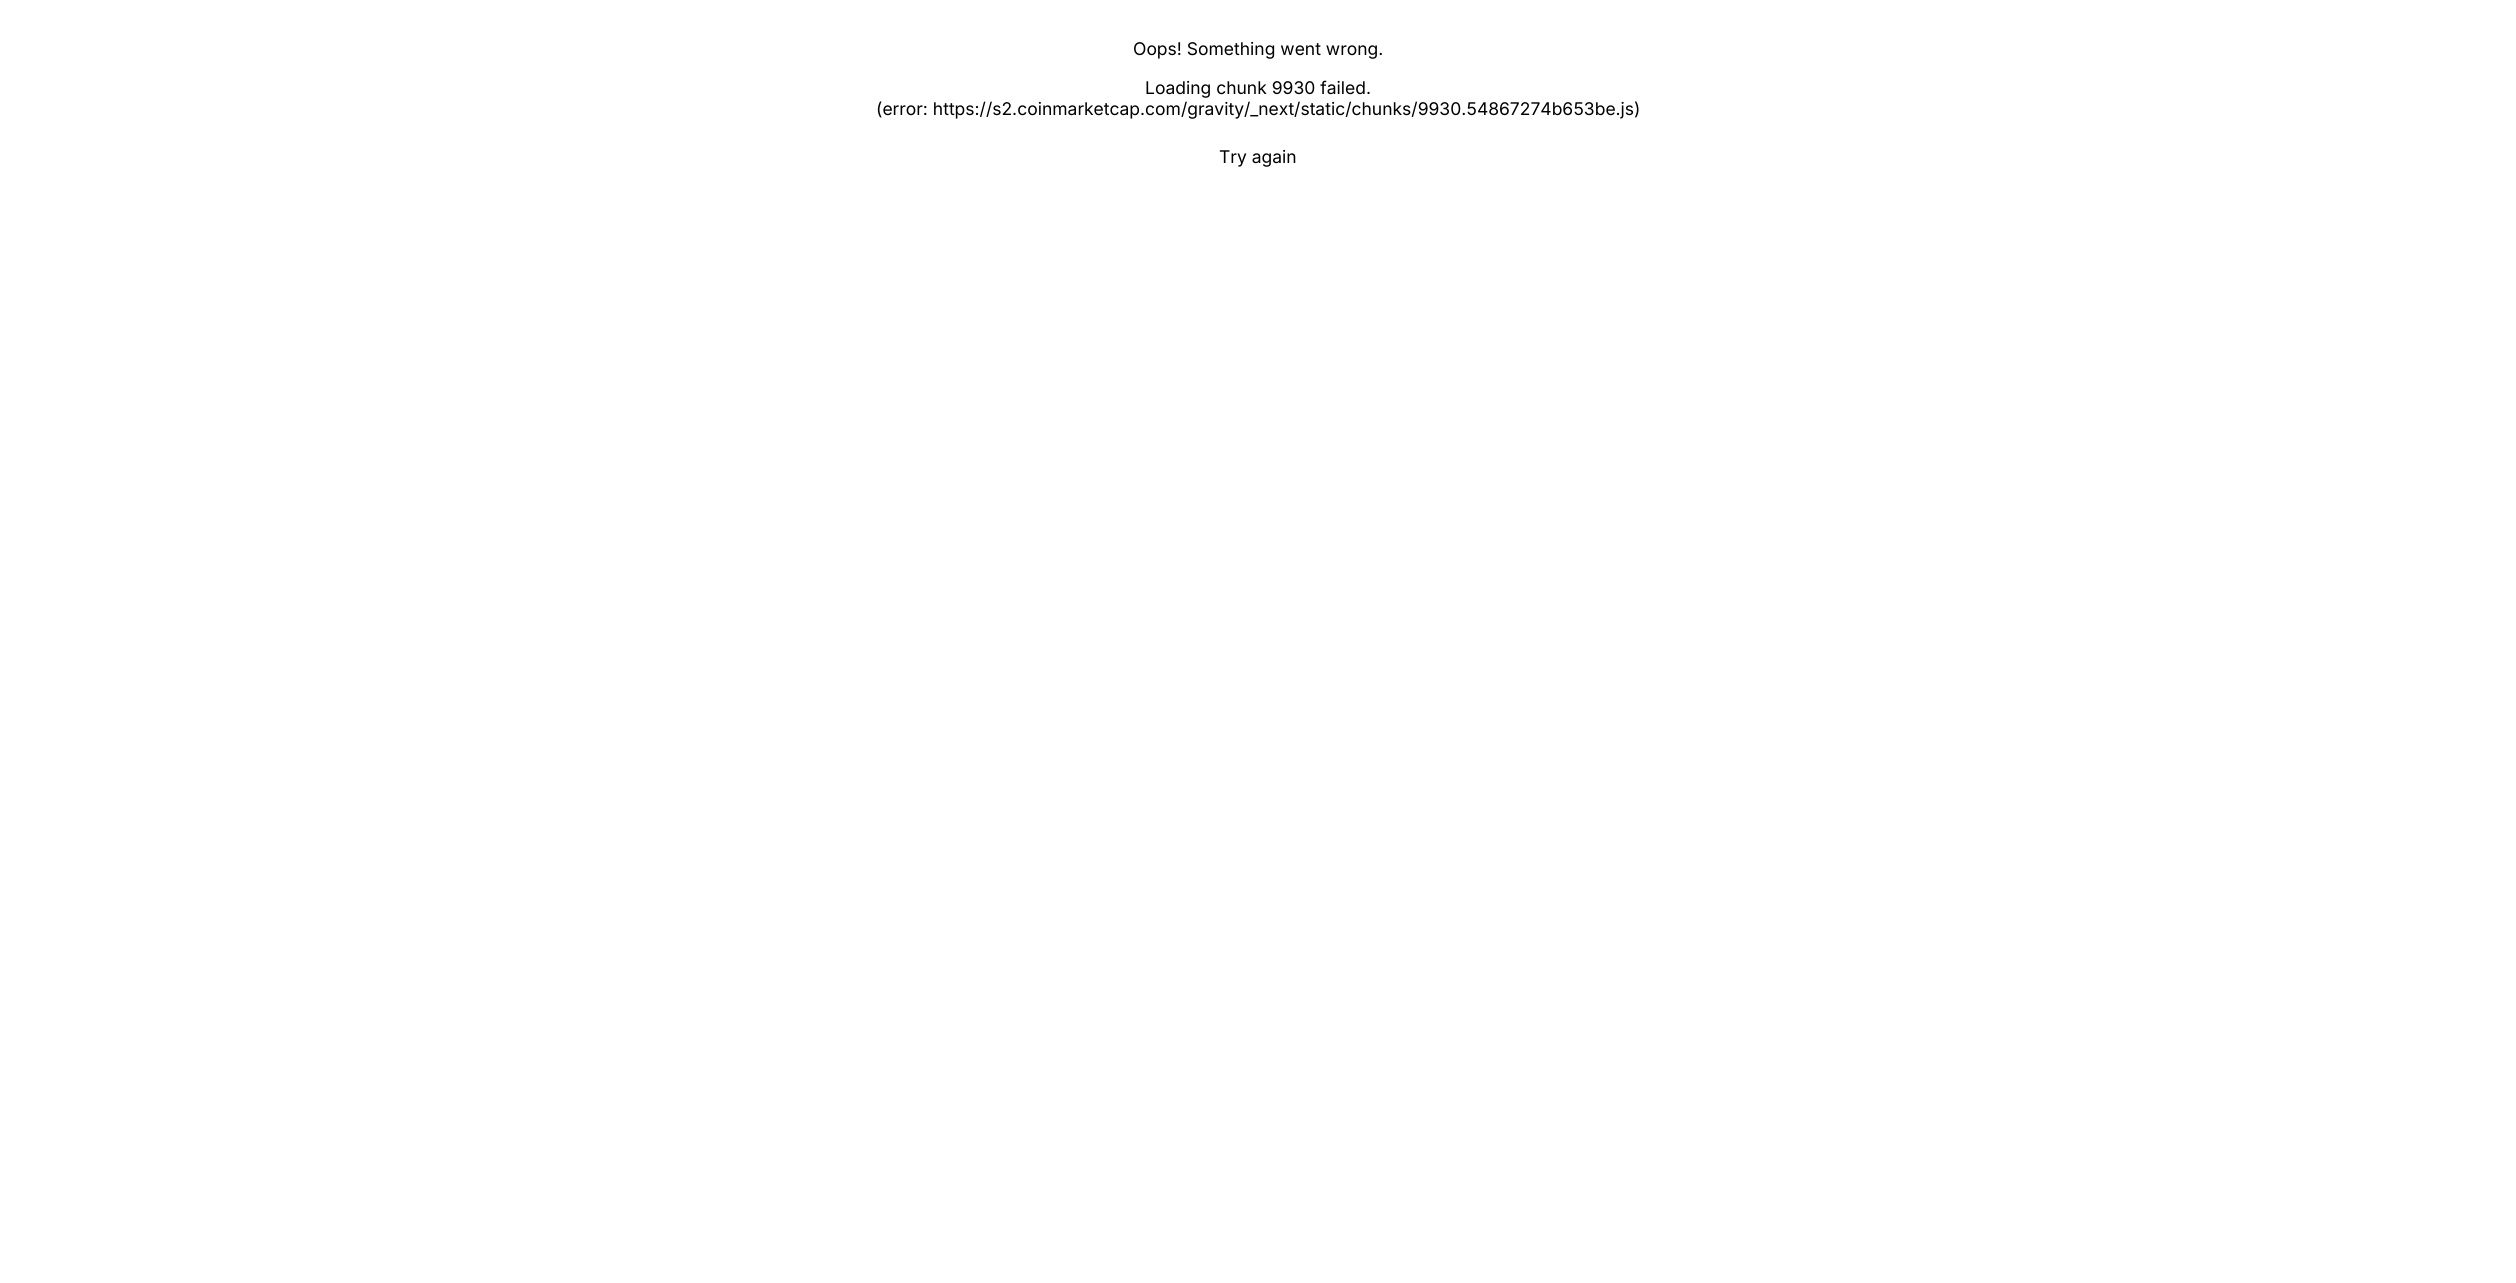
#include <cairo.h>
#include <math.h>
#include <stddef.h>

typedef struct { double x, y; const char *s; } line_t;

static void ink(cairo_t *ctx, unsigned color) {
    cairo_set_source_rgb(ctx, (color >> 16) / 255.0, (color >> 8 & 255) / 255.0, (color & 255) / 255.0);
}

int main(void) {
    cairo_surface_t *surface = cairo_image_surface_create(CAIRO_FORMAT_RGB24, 2516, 1283);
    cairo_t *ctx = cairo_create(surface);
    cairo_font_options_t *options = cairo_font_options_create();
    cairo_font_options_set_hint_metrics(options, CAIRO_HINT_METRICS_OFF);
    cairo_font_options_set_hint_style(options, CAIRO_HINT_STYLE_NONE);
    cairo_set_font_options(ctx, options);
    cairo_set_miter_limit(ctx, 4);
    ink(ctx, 0xFFFFFF);
    cairo_paint(ctx);
    cairo_select_font_face(ctx, "Inter", CAIRO_FONT_SLANT_NORMAL, CAIRO_FONT_WEIGHT_NORMAL);
    cairo_set_font_size(ctx, 17.5);
    ink(ctx, 0x000000);
    {
        static const line_t items[] = {
            {1133, 55, "Oops! Something went wrong."},
            {1145, 94, "Loading chunk 9930 failed."},
            {876, 115, "(error: https://s2.coinmarketcap.com/gravity/_next/static/chunks/9930.54867274b653be.js)"},
            {1219, 163, "Try again"},
        };
        for (size_t i = 0; i < sizeof items / sizeof *items; i++) {
            cairo_move_to(ctx, items[i].x, items[i].y);
            cairo_show_text(ctx, items[i].s);
        }
    }
    cairo_surface_write_to_png(surface, "image.png");
    cairo_font_options_destroy(options);
    cairo_destroy(ctx);
    cairo_surface_destroy(surface);
    return 0;
}
